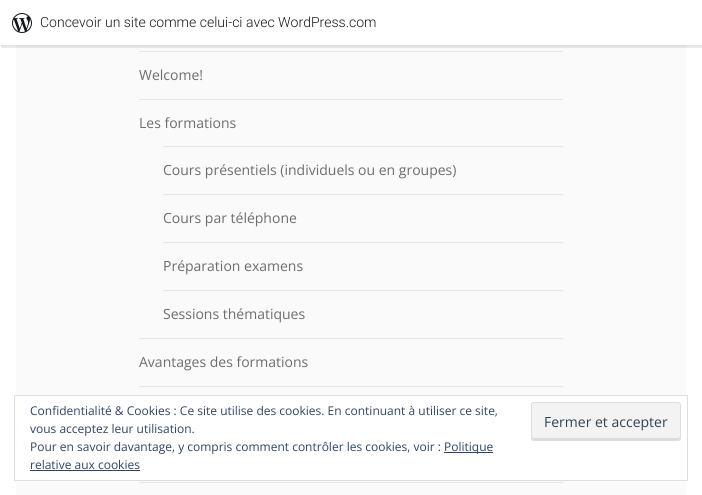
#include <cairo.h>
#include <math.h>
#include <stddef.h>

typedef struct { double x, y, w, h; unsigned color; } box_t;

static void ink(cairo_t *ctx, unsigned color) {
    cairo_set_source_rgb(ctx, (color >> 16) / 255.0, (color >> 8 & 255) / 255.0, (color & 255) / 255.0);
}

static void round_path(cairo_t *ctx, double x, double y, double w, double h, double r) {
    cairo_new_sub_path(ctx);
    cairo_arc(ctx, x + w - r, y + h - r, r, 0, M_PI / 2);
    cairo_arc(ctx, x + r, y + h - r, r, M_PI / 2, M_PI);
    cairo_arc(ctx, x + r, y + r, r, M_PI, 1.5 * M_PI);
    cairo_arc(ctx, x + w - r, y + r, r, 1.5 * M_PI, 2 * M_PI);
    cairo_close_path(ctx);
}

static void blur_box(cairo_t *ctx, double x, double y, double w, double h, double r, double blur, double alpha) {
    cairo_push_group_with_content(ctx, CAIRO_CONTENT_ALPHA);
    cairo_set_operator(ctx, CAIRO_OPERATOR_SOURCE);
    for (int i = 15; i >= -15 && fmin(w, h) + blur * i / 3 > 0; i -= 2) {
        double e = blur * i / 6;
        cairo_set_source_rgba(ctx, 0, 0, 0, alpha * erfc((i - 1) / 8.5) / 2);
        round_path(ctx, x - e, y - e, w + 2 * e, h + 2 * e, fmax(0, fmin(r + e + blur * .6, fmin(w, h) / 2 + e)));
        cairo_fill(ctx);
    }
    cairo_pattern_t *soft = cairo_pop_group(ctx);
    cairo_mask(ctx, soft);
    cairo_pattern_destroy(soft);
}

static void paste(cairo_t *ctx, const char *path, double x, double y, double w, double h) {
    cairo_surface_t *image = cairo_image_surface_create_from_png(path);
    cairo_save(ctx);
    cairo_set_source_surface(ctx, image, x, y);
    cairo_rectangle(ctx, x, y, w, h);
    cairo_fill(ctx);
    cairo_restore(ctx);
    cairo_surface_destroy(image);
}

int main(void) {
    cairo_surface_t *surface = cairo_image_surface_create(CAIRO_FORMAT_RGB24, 702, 495);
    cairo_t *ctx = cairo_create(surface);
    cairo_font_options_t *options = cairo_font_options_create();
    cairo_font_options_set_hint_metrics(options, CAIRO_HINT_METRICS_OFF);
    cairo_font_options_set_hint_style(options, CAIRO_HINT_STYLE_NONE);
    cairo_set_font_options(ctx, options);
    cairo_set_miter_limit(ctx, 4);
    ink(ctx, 0xFFFFFF);
    cairo_paint(ctx);
    ink(ctx, 0xFAFAFA);
    cairo_rectangle(ctx, 16, 45, 670, 450);
    cairo_fill(ctx);
    ink(ctx, 0x000000);
    blur_box(ctx, 0, 1, 702, 45, 0, 1, 0.05);
    cairo_set_source_rgba(ctx, 0, 0, 0, 0.08);
    cairo_new_path(ctx);
    cairo_move_to(ctx, 1, 45);
    cairo_line_to(ctx, 1, 48);
    cairo_line_to(ctx, 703, 48);
    cairo_line_to(ctx, 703, 3);
    cairo_line_to(ctx, 702, 3);
    cairo_line_to(ctx, 702, 45);
    cairo_close_path(ctx);
    cairo_fill(ctx);
    ink(ctx, 0xFFFFFF);
    cairo_rectangle(ctx, 0, 0, 702, 45);
    cairo_fill(ctx);
    paste(ctx, "media/1.png", 12, 13, 20, 20);
    cairo_select_font_face(ctx, "Roboto Light", CAIRO_FONT_SLANT_NORMAL, CAIRO_FONT_WEIGHT_NORMAL);
    cairo_set_font_size(ctx, 14);
    ink(ctx, 0x171717);
    cairo_move_to(ctx, 40, 27);
    cairo_show_text(ctx, "Concevoir un site comme celui-ci avec WordPress.com");
    ink(ctx, 0xE5E5E5);
    cairo_rectangle(ctx, 139, 51, 424, 1);
    cairo_fill(ctx);
    cairo_select_font_face(ctx, "Open Sans", CAIRO_FONT_SLANT_NORMAL, CAIRO_FONT_WEIGHT_NORMAL);
    ink(ctx, 0x6D6D6D);
    cairo_move_to(ctx, 139, 80);
    cairo_show_text(ctx, "Welcome!");
    ink(ctx, 0xE5E5E5);
    cairo_rectangle(ctx, 139, 99, 424, 1);
    cairo_fill(ctx);
    ink(ctx, 0x6D6D6D);
    cairo_move_to(ctx, 139, 128);
    cairo_show_text(ctx, "Les formations");
    ink(ctx, 0xE5E5E5);
    cairo_rectangle(ctx, 163, 146, 400, 1);
    cairo_fill(ctx);
    ink(ctx, 0x6D6D6D);
    cairo_move_to(ctx, 163, 175);
    cairo_show_text(ctx, "Cours présentiels (individuels ou en groupes)");
    ink(ctx, 0xE5E5E5);
    cairo_rectangle(ctx, 163, 194, 400, 1);
    cairo_fill(ctx);
    ink(ctx, 0x6D6D6D);
    cairo_move_to(ctx, 163, 223);
    cairo_show_text(ctx, "Cours par téléphone");
    ink(ctx, 0xE5E5E5);
    cairo_rectangle(ctx, 163, 242, 400, 1);
    cairo_fill(ctx);
    ink(ctx, 0x6D6D6D);
    cairo_move_to(ctx, 163, 271);
    cairo_show_text(ctx, "Préparation examens");
    ink(ctx, 0xE5E5E5);
    cairo_rectangle(ctx, 163, 290, 400, 1);
    cairo_fill(ctx);
    ink(ctx, 0x6D6D6D);
    cairo_move_to(ctx, 163, 319);
    cairo_show_text(ctx, "Sessions thématiques");
    ink(ctx, 0xE5E5E5);
    cairo_rectangle(ctx, 139, 338, 424, 1);
    cairo_fill(ctx);
    ink(ctx, 0x6D6D6D);
    cairo_move_to(ctx, 139, 367);
    cairo_show_text(ctx, "Avantages des formations");
    {
        static const box_t items[] = {
            {139, 386, 424, 1, 0xE5E5E5},
            {139, 482, 424, 1, 0xE5E5E5},
            {16, 396, 670, 84, 0xFFFFFF},
        };
        for (size_t i = 0; i < sizeof items / sizeof *items; i++) {
            ink(ctx, items[i].color);
            cairo_rectangle(ctx, items[i].x, items[i].y, items[i].w, items[i].h);
            cairo_fill(ctx);
        }
    }
    cairo_rectangle(ctx, 14.5, 395.5, 673, 85);
    ink(ctx, 0xDEDEDE);
    cairo_set_line_width(ctx, 1);
    cairo_stroke(ctx);
    cairo_set_font_size(ctx, 12);
    ink(ctx, 0x2E4467);
    cairo_move_to(ctx, 30, 415);
    cairo_show_text(ctx, "Confidentialité & Cookies : Ce site utilise des cookies. En continuant à utiliser ce site,");
    cairo_move_to(ctx, 30, 433);
    cairo_show_text(ctx, "vous acceptez leur utilisation.");
    ink(ctx, 0xF3F3F3);
    round_path(ctx, 531, 402, 150, 39, 3);
    cairo_fill(ctx);
    ink(ctx, 0xDBDBDB);
    cairo_new_path(ctx);
    cairo_move_to(ctx, 532, 436);
    cairo_curve_to(ctx, 532, 437, 532, 440, 534, 440);
    cairo_line_to(ctx, 678, 440);
    cairo_curve_to(ctx, 680, 440, 680, 438, 680, 436);
    cairo_curve_to(ctx, 680, 437, 679, 438, 678, 438);
    cairo_line_to(ctx, 534, 438);
    cairo_curve_to(ctx, 533, 438, 532, 437, 532, 436);
    cairo_close_path(ctx);
    cairo_fill(ctx);
    round_path(ctx, 531.5, 402.5, 149, 38, 2.5);
    ink(ctx, 0xDEDEDE);
    cairo_stroke(ctx);
    cairo_set_font_size(ctx, 14);
    ink(ctx, 0x2E4453);
    cairo_move_to(ctx, 544, 427);
    cairo_show_text(ctx, "Fermer et accepter");
    cairo_set_font_size(ctx, 12);
    ink(ctx, 0x2E4467);
    cairo_move_to(ctx, 30, 451);
    cairo_show_text(ctx, "Pour en savoir davantage, y compris comment contrôler les cookies, voir :");
    cairo_rectangle(ctx, 444, 452, 49, 1);
    cairo_fill(ctx);
    cairo_move_to(ctx, 444, 451);
    cairo_show_text(ctx, "Politique");
    cairo_move_to(ctx, 30, 469);
    cairo_show_text(ctx, "relative aux cookies");
    cairo_rectangle(ctx, 30, 470, 110, 1);
    cairo_fill(ctx);
    cairo_surface_write_to_png(surface, "image.png");
    cairo_font_options_destroy(options);
    cairo_destroy(ctx);
    cairo_surface_destroy(surface);
    return 0;
}
